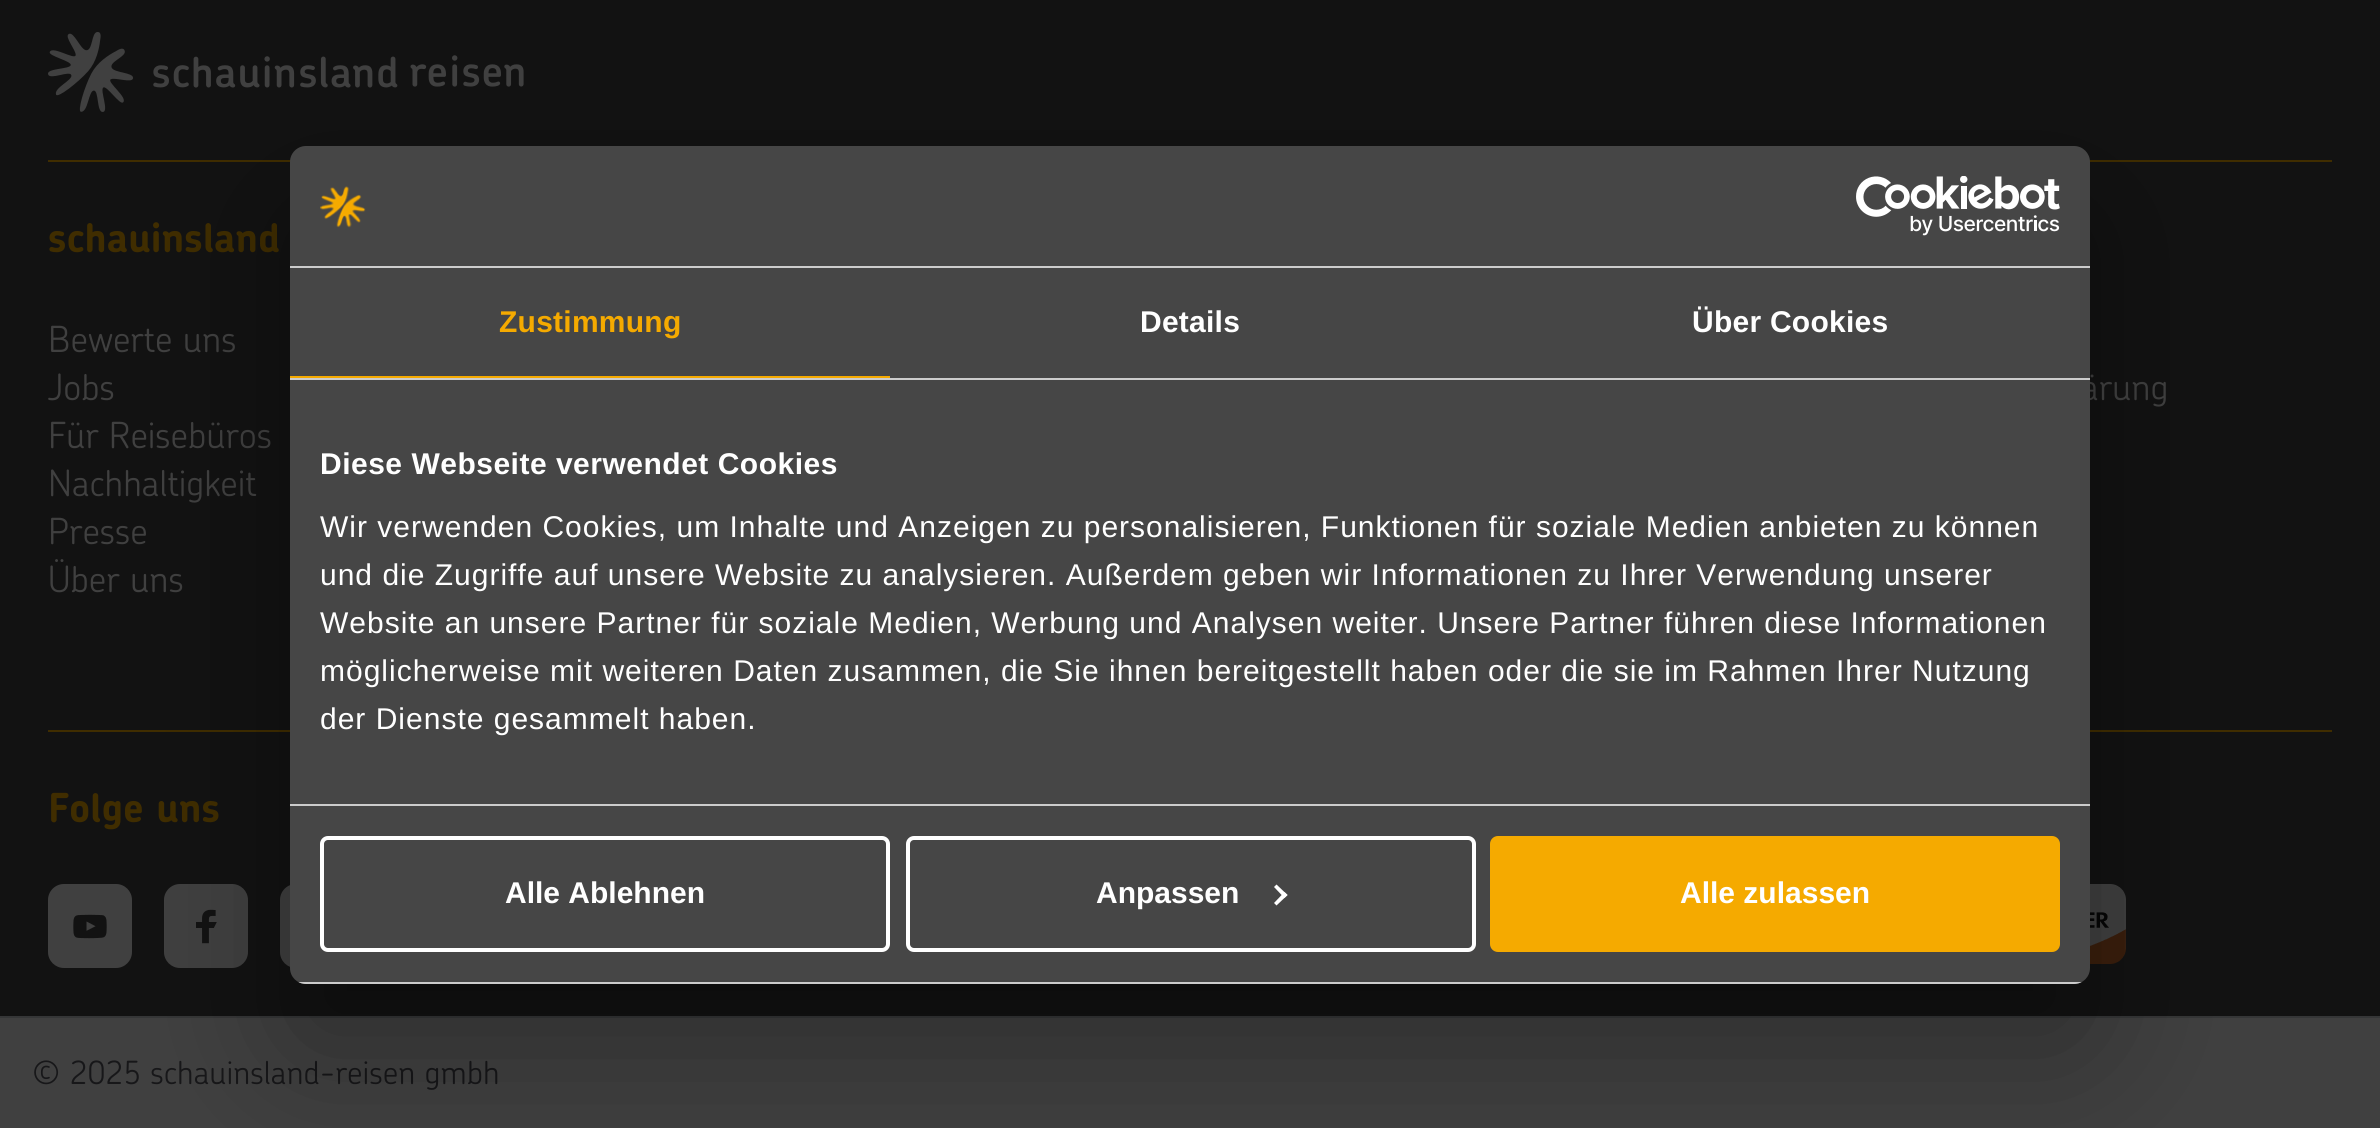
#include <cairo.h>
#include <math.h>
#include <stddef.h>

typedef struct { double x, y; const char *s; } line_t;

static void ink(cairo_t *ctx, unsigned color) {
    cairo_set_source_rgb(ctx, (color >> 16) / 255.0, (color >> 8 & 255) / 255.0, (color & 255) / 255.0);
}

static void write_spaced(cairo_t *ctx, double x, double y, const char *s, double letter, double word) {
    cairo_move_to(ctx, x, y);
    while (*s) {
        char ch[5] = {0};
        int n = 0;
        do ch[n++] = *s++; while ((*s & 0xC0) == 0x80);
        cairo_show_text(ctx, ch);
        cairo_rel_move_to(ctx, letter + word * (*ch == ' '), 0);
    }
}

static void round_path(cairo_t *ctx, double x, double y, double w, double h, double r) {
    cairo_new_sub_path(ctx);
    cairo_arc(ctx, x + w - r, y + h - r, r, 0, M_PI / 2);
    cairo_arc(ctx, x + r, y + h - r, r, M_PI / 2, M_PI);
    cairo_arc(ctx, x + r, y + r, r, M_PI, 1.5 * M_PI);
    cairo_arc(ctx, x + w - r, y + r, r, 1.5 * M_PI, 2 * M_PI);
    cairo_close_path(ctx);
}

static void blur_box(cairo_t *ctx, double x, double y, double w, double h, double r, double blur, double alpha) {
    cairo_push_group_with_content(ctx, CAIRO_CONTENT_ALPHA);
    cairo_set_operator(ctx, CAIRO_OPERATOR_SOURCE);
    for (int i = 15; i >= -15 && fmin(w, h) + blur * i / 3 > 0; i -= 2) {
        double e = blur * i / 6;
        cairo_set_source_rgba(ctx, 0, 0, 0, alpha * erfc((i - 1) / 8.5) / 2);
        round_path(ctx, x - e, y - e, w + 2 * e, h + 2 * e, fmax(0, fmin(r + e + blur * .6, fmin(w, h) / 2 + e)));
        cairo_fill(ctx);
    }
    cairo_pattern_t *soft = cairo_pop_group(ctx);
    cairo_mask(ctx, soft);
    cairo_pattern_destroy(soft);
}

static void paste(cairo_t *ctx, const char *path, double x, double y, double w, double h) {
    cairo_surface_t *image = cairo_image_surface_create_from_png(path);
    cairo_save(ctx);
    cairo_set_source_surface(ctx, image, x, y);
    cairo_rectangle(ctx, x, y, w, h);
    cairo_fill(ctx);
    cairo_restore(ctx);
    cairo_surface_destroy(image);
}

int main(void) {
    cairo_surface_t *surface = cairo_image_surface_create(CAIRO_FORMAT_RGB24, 2380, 1128);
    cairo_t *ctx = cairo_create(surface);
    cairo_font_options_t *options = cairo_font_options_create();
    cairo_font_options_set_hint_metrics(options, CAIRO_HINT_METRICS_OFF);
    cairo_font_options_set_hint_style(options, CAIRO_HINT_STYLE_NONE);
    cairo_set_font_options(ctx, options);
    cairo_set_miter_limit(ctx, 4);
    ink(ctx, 0x121212);
    cairo_paint(ctx);
    ink(ctx, 0x402D00);
    cairo_rectangle(ctx, 48, 160, 2284, 2);
    cairo_fill(ctx);
    paste(ctx, "media/1.png", 48, 32, 476, 80);
    cairo_select_font_face(ctx, "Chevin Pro", CAIRO_FONT_SLANT_NORMAL, CAIRO_FONT_WEIGHT_BOLD);
    cairo_set_font_size(ctx, 40);
    cairo_move_to(ctx, 48, 252);
    cairo_show_text(ctx, "schauinsland");
    cairo_select_font_face(ctx, "Chevin Pro Light", CAIRO_FONT_SLANT_NORMAL, CAIRO_FONT_WEIGHT_NORMAL);
    cairo_set_font_size(ctx, 36);
    ink(ctx, 0x404040);
    {
        static const line_t items[] = {
            {48, 352, "Bewerte uns"},
            {48, 400, "Jobs"},
            {48, 448, "Für Reisebüros"},
            {48, 496, "Nachhaltigkeit"},
            {48, 544, "Presse"},
            {48, 592, "Über uns"},
            {2081, 400, "ärung"},
        };
        for (size_t i = 0; i < sizeof items / sizeof *items; i++) {
            cairo_move_to(ctx, items[i].x, items[i].y);
            cairo_show_text(ctx, items[i].s);
        }
    }
    ink(ctx, 0x402D00);
    cairo_rectangle(ctx, 48, 730, 2284, 2);
    cairo_fill(ctx);
    cairo_select_font_face(ctx, "Chevin Pro", CAIRO_FONT_SLANT_NORMAL, CAIRO_FONT_WEIGHT_BOLD);
    cairo_set_font_size(ctx, 40);
    cairo_move_to(ctx, 48, 822);
    cairo_show_text(ctx, "Folge uns");
    ink(ctx, 0x404040);
    round_path(ctx, 48, 884, 84, 84, 16);
    cairo_fill(ctx);
    paste(ctx, "media/2.png", 73, 914, 34, 25);
    round_path(ctx, 164, 884, 84, 84, 16);
    cairo_fill(ctx);
    paste(ctx, "media/3.png", 196, 909, 21, 35);
    round_path(ctx, 280, 884, 84, 84, 16);
    cairo_fill(ctx);
    paste(ctx, "media/4.png", 2090, 884, 36, 80);
    cairo_rectangle(ctx, 0, 1018, 2380, 110);
    cairo_fill(ctx);
    ink(ctx, 0x353637);
    cairo_rectangle(ctx, 0, 1016, 2380, 2);
    cairo_fill(ctx);
    cairo_select_font_face(ctx, "Chevin Pro Light", CAIRO_FONT_SLANT_NORMAL, CAIRO_FONT_WEIGHT_NORMAL);
    cairo_set_font_size(ctx, 32);
    ink(ctx, 0x171719);
    cairo_move_to(ctx, 32, 1084);
    cairo_show_text(ctx, "© 2025 schauinsland-reisen gmbh");
    ink(ctx, 0x000000);
    blur_box(ctx, 290, 210, 1800, 838, 16, 68, 0.3);
    ink(ctx, 0x464646);
    round_path(ctx, 290, 146, 1800, 838, 16);
    cairo_fill(ctx);
    ink(ctx, 0xCCCCCC);
    cairo_rectangle(ctx, 290, 266, 1800, 2);
    cairo_fill(ctx);
    paste(ctx, "media/5.png", 320, 186, 46, 42);
    paste(ctx, "media/6.png", 1856, 176, 204, 60);
    cairo_rectangle(ctx, 290, 378, 1800, 2);
    cairo_fill(ctx);
    ink(ctx, 0xF5AA00);
    cairo_rectangle(ctx, 290, 376, 600, 2);
    cairo_fill(ctx);
    cairo_select_font_face(ctx, "Liberation Sans", CAIRO_FONT_SLANT_NORMAL, CAIRO_FONT_WEIGHT_BOLD);
    cairo_set_font_size(ctx, 30);
    write_spaced(ctx, 499, 332, "Zustimmung", 0.25, 0);
    ink(ctx, 0xFFFFFF);
    write_spaced(ctx, 1140, 332, "Details", 0.25, 0);
    write_spaced(ctx, 1692, 332, "Über Cookies", 0.25, 0);
    ink(ctx, 0xCCCCCC);
    cairo_rectangle(ctx, 290, 804, 1800, 2);
    cairo_fill(ctx);
    ink(ctx, 0xFFFFFF);
    write_spaced(ctx, 320, 474, "Diese Webseite verwendet Cookies", 0.5, 0);
    cairo_select_font_face(ctx, "Liberation Sans", CAIRO_FONT_SLANT_NORMAL, CAIRO_FONT_WEIGHT_NORMAL);
    {
        static const line_t items[] = {
            {320, 537, "Wir verwenden Cookies, um Inhalte und Anzeigen zu personalisieren, Funktionen für soziale Medien anbieten zu können"},
            {320, 585, "und die Zugriffe auf unsere Website zu analysieren. Außerdem geben wir Informationen zu Ihrer Verwendung unserer"},
            {320, 633, "Website an unsere Partner für soziale Medien, Werbung und Analysen weiter. Unsere Partner führen diese Informationen"},
            {320, 681, "möglicherweise mit weiteren Daten zusammen, die Sie ihnen bereitgestellt haben oder die sie im Rahmen Ihrer Nutzung"},
            {320, 729, "der Dienste gesammelt haben."},
        };
        for (size_t i = 0; i < sizeof items / sizeof *items; i++) {
            write_spaced(ctx, items[i].x, items[i].y, items[i].s, 1, 0);
        }
    }
    cairo_save(ctx);
    round_path(ctx, 290, 146, 1800, 838, 16);
    cairo_clip(ctx);
    ink(ctx, 0xCCCCCC);
    cairo_rectangle(ctx, 290, 982, 1800, 2);
    cairo_fill(ctx);
    cairo_restore(ctx);
    round_path(ctx, 322, 838, 566, 112, 6);
    cairo_set_line_width(ctx, 4);
    cairo_stroke(ctx);
    cairo_select_font_face(ctx, "Liberation Sans", CAIRO_FONT_SLANT_NORMAL, CAIRO_FONT_WEIGHT_BOLD);
    cairo_move_to(ctx, 505, 903);
    cairo_show_text(ctx, "Alle Ablehnen");
    round_path(ctx, 908, 838, 566, 112, 6);
    cairo_stroke(ctx);
    cairo_move_to(ctx, 1096, 903);
    cairo_show_text(ctx, "Anpassen");
    cairo_new_path(ctx);
    cairo_move_to(ctx, 1276.5, 884.5);
    cairo_line_to(ctx, 1287.5, 895);
    cairo_line_to(ctx, 1284.5, 898);
    cairo_line_to(ctx, 1274, 887);
    cairo_close_path(ctx);
    cairo_fill(ctx);
    cairo_new_path(ctx);
    cairo_move_to(ctx, 1284.5, 892);
    cairo_line_to(ctx, 1287.5, 895);
    cairo_line_to(ctx, 1276.5, 905.5);
    cairo_line_to(ctx, 1274, 903);
    cairo_close_path(ctx);
    cairo_fill(ctx);
    ink(ctx, 0xF5AA00);
    round_path(ctx, 1492, 838, 566, 112, 6);
    cairo_fill_preserve(ctx);
    cairo_stroke(ctx);
    ink(ctx, 0xFFFFFF);
    cairo_move_to(ctx, 1680, 903);
    cairo_show_text(ctx, "Alle zulassen");
    cairo_surface_write_to_png(surface, "image.png");
    cairo_font_options_destroy(options);
    cairo_destroy(ctx);
    cairo_surface_destroy(surface);
    return 0;
}
